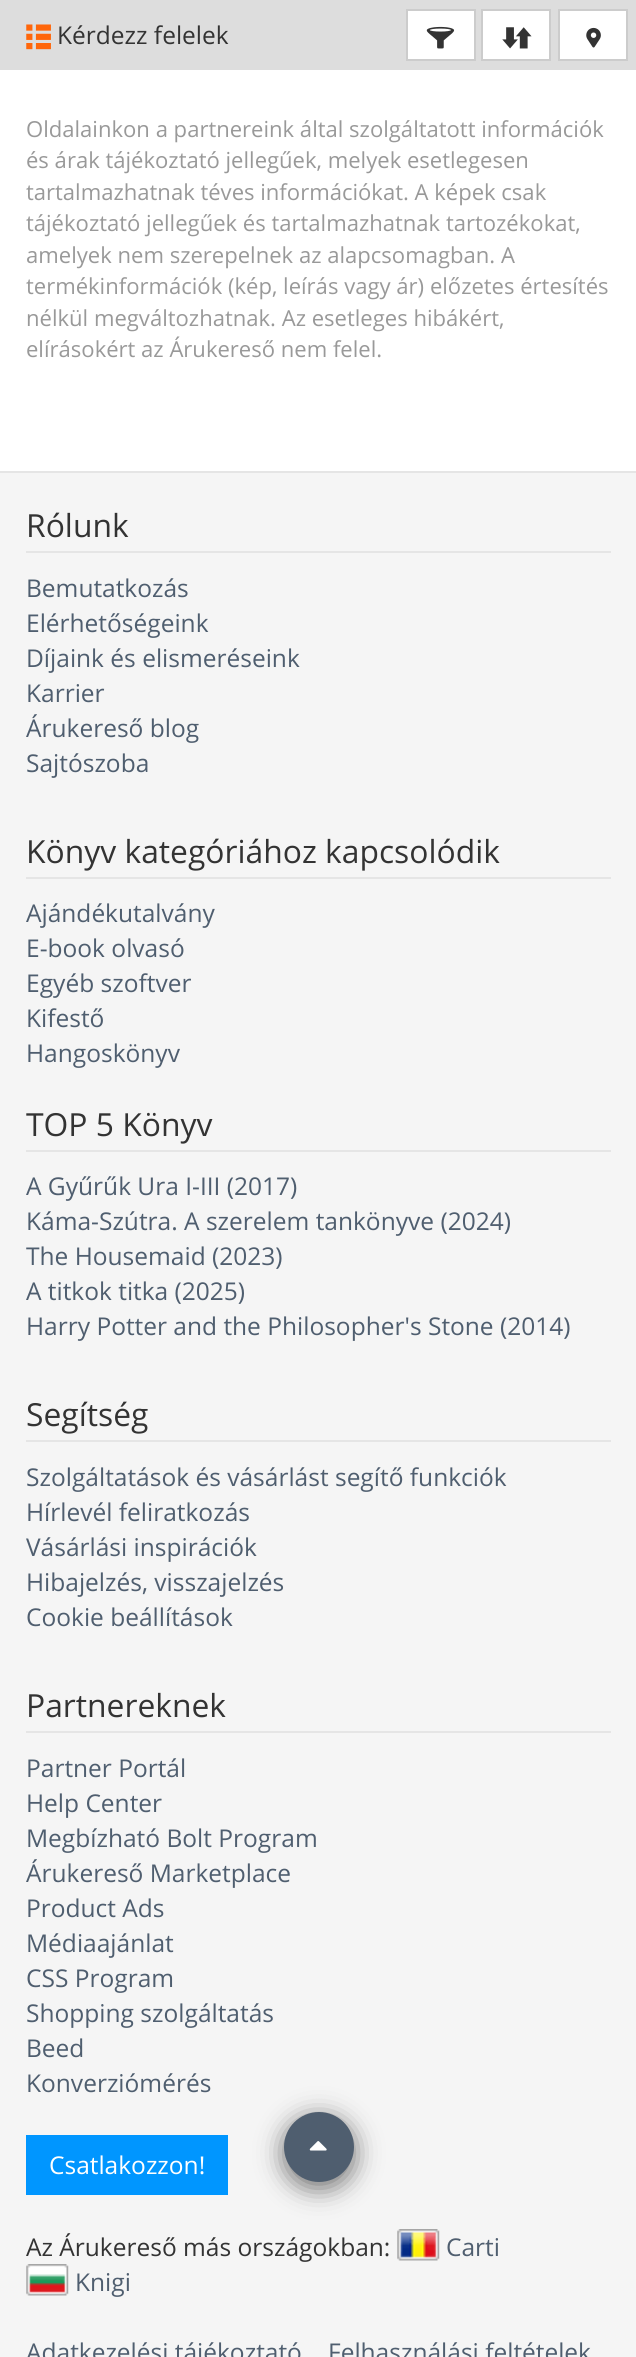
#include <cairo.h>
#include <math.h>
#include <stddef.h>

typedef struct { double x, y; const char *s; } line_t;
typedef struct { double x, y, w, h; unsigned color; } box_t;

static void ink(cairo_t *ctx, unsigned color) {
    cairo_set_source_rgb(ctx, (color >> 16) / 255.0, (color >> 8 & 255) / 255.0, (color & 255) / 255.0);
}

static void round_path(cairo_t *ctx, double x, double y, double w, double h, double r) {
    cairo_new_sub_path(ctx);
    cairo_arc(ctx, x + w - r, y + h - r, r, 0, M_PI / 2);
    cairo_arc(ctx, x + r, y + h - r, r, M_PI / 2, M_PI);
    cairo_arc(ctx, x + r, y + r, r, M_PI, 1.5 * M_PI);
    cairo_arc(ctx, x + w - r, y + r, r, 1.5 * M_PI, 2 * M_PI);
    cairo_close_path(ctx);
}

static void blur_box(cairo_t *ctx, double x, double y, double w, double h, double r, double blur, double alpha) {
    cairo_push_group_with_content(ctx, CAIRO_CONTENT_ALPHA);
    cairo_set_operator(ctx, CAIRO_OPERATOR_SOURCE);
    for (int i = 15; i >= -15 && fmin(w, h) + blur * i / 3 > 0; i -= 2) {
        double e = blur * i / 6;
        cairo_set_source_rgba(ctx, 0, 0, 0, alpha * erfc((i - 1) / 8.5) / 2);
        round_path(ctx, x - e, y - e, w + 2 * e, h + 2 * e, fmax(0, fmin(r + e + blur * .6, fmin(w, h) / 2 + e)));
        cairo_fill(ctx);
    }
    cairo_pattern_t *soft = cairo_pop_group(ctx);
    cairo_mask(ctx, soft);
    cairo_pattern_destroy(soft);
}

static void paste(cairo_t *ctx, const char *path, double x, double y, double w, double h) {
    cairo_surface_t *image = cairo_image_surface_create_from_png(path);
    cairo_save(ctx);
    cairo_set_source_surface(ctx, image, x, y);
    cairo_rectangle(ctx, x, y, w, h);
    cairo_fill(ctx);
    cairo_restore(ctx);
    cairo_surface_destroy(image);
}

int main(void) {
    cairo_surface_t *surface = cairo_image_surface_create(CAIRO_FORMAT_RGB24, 636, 2357);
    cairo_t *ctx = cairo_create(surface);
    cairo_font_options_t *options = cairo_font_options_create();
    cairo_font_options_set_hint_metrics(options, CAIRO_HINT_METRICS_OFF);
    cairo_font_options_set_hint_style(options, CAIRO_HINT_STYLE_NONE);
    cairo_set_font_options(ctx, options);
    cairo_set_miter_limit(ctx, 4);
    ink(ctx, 0xFFFFFF);
    cairo_paint(ctx);
    ink(ctx, 0xDDDDDD);
    cairo_rectangle(ctx, 0, 0, 636, 70);
    cairo_fill(ctx);
    paste(ctx, "media/1.png", 26, 24, 25, 26);
    cairo_select_font_face(ctx, "Open Sans", CAIRO_FONT_SLANT_NORMAL, CAIRO_FONT_WEIGHT_NORMAL);
    cairo_set_font_size(ctx, 24.5);
    ink(ctx, 0x333333);
    cairo_move_to(ctx, 57, 44);
    cairo_show_text(ctx, "Kérdezz felelek");
    ink(ctx, 0xFFFFFF);
    cairo_rectangle(ctx, 407, 10, 68, 50);
    cairo_fill_preserve(ctx);
    ink(ctx, 0xCCCCCC);
    cairo_stroke(ctx);
    paste(ctx, "media/2.png", 426, 26, 29, 23);
    ink(ctx, 0xFFFFFF);
    cairo_rectangle(ctx, 482, 10, 68, 50);
    cairo_fill_preserve(ctx);
    ink(ctx, 0xCCCCCC);
    cairo_stroke(ctx);
    paste(ctx, "media/3.png", 502, 27, 30, 22);
    ink(ctx, 0xFFFFFF);
    cairo_rectangle(ctx, 559, 10, 68, 50);
    cairo_fill_preserve(ctx);
    ink(ctx, 0xCCCCCC);
    cairo_stroke(ctx);
    paste(ctx, "media/4.png", 586, 27, 15, 21);
    cairo_set_font_size(ctx, 22.05);
    ink(ctx, 0x999999);
    {
        static const line_t items[] = {
            {26, 137, "Oldalainkon a partnereink által szolgáltatott információk"},
            {26, 168, "és árak tájékoztató jellegűek, melyek esetlegesen"},
            {26, 200, "tartalmazhatnak téves információkat. A képek csak"},
            {26, 231, "tájékoztató jellegűek és tartalmazhatnak tartozékokat,"},
            {26, 263, "amelyek nem szerepelnek az alapcsomagban. A"},
            {26, 294, "termékinformációk (kép, leírás vagy ár) előzetes értesítés"},
            {26, 326, "nélkül megváltozhatnak. Az esetleges hibákért,"},
            {26, 357, "elírásokért az Árukereső nem felel."},
        };
        for (size_t i = 0; i < sizeof items / sizeof *items; i++) {
            cairo_move_to(ctx, items[i].x, items[i].y);
            cairo_show_text(ctx, items[i].s);
        }
    }
    {
        static const box_t items[] = {
            {0, 473, 636, 1884, 0xF5F5F5},
            {0, 471, 636, 2, 0xE5E5E5},
            {26, 551, 585, 2, 0xE5E5E5},
        };
        for (size_t i = 0; i < sizeof items / sizeof *items; i++) {
            ink(ctx, items[i].color);
            cairo_rectangle(ctx, items[i].x, items[i].y, items[i].w, items[i].h);
            cairo_fill(ctx);
        }
    }
    cairo_set_font_size(ctx, 31.8);
    ink(ctx, 0x333333);
    cairo_move_to(ctx, 26, 537);
    cairo_show_text(ctx, "Rólunk");
    cairo_set_font_size(ctx, 24.5);
    ink(ctx, 0x4F5E6F);
    {
        static const line_t items[] = {
            {26, 597, "Bemutatkozás"},
            {26, 632, "Elérhetőségeink"},
            {26, 667, "Díjaink és elismeréseink"},
            {26, 702, "Karrier"},
            {26, 737, "Árukereső blog"},
            {26, 772, "Sajtószoba"},
        };
        for (size_t i = 0; i < sizeof items / sizeof *items; i++) {
            cairo_move_to(ctx, items[i].x, items[i].y);
            cairo_show_text(ctx, items[i].s);
        }
    }
    ink(ctx, 0xE5E5E5);
    cairo_rectangle(ctx, 26, 877, 585, 2);
    cairo_fill(ctx);
    cairo_set_font_size(ctx, 31.8);
    ink(ctx, 0x333333);
    cairo_move_to(ctx, 26, 863);
    cairo_show_text(ctx, "Könyv kategóriához kapcsolódik");
    cairo_set_font_size(ctx, 24.5);
    ink(ctx, 0x4F5E6F);
    {
        static const line_t items[] = {
            {26, 922, "Ajándékutalvány"},
            {26, 957, "E-book olvasó"},
            {26, 992, "Egyéb szoftver"},
            {26, 1027, "Kifestő"},
            {26, 1062, "Hangoskönyv"},
        };
        for (size_t i = 0; i < sizeof items / sizeof *items; i++) {
            cairo_move_to(ctx, items[i].x, items[i].y);
            cairo_show_text(ctx, items[i].s);
        }
    }
    ink(ctx, 0xE5E5E5);
    cairo_rectangle(ctx, 26, 1150, 585, 2);
    cairo_fill(ctx);
    cairo_set_font_size(ctx, 31.8);
    ink(ctx, 0x333333);
    cairo_move_to(ctx, 26, 1136);
    cairo_show_text(ctx, "TOP 5 Könyv");
    cairo_set_font_size(ctx, 24.5);
    ink(ctx, 0x4F5E6F);
    {
        static const line_t items[] = {
            {26, 1195, "A Gyűrűk Ura I-III (2017)"},
            {26, 1230, "Káma-Szútra. A szerelem tankönyve (2024)"},
            {26, 1265, "The Housemaid (2023)"},
            {26, 1300, "A titkok titka (2025)"},
            {26, 1335, "Harry Potter and the Philosopher's Stone (2014)"},
        };
        for (size_t i = 0; i < sizeof items / sizeof *items; i++) {
            cairo_move_to(ctx, items[i].x, items[i].y);
            cairo_show_text(ctx, items[i].s);
        }
    }
    ink(ctx, 0xE5E5E5);
    cairo_rectangle(ctx, 26, 1440, 585, 2);
    cairo_fill(ctx);
    cairo_set_font_size(ctx, 31.8);
    ink(ctx, 0x333333);
    cairo_move_to(ctx, 26, 1426);
    cairo_show_text(ctx, "Segítség");
    cairo_set_font_size(ctx, 24.5);
    ink(ctx, 0x4F5E6F);
    {
        static const line_t items[] = {
            {26, 1486, "Szolgáltatások és vásárlást segítő funkciók"},
            {26, 1521, "Hírlevél feliratkozás"},
            {26, 1556, "Vásárlási inspirációk"},
            {26, 1591, "Hibajelzés, visszajelzés"},
            {26, 1626, "Cookie beállítások"},
        };
        for (size_t i = 0; i < sizeof items / sizeof *items; i++) {
            cairo_move_to(ctx, items[i].x, items[i].y);
            cairo_show_text(ctx, items[i].s);
        }
    }
    ink(ctx, 0xE5E5E5);
    cairo_rectangle(ctx, 26, 1731, 585, 2);
    cairo_fill(ctx);
    cairo_set_font_size(ctx, 31.8);
    ink(ctx, 0x333333);
    cairo_move_to(ctx, 26, 1717);
    cairo_show_text(ctx, "Partnereknek");
    cairo_set_font_size(ctx, 24.5);
    ink(ctx, 0x4F5E6F);
    {
        static const line_t items[] = {
            {26, 1777, "Partner Portál"},
            {26, 1812, "Help Center"},
            {26, 1847, "Megbízható Bolt Program"},
            {26, 1882, "Árukereső Marketplace"},
            {26, 1917, "Product Ads"},
            {26, 1952, "Médiaajánlat"},
            {26, 1987, "CSS Program"},
            {26, 2022, "Shopping szolgáltatás"},
            {26, 2057, "Beed"},
            {26, 2092, "Konverziómérés"},
        };
        for (size_t i = 0; i < sizeof items / sizeof *items; i++) {
            cairo_move_to(ctx, items[i].x, items[i].y);
            cairo_show_text(ctx, items[i].s);
        }
    }
    ink(ctx, 0x0096FF);
    cairo_rectangle(ctx, 26, 2135, 202, 60);
    cairo_fill(ctx);
    ink(ctx, 0xFFFFFF);
    cairo_move_to(ctx, 49, 2174);
    cairo_show_text(ctx, "Csatlakozzon!");
    ink(ctx, 0x333333);
    cairo_move_to(ctx, 26, 2256);
    cairo_show_text(ctx, "Az Árukereső más országokban:");
    paste(ctx, "media/5.png", 397, 2229, 43, 32);
    ink(ctx, 0x4F5E6F);
    cairo_move_to(ctx, 446, 2256);
    cairo_show_text(ctx, "Carti");
    paste(ctx, "media/6.png", 26, 2264, 43, 32);
    {
        static const line_t items[] = {
            {75, 2291, "Knigi"},
            {26, 2361, "Adatkezelési tájékoztató"},
            {328, 2361, "Felhasználási feltételek"},
        };
        for (size_t i = 0; i < sizeof items / sizeof *items; i++) {
            cairo_move_to(ctx, items[i].x, items[i].y);
            cairo_show_text(ctx, items[i].s);
        }
    }
    ink(ctx, 0x000000);
    blur_box(ctx, 284, 2118, 70, 70, 35, 13, 0.55);
    ink(ctx, 0x4F5E6F);
    cairo_arc(ctx, 319, 2147, 35, 0, 2 * M_PI);
    cairo_fill(ctx);
    paste(ctx, "media/7.png", 309, 2141, 18, 10);
    cairo_surface_write_to_png(surface, "image.png");
    cairo_font_options_destroy(options);
    cairo_destroy(ctx);
    cairo_surface_destroy(surface);
    return 0;
}
